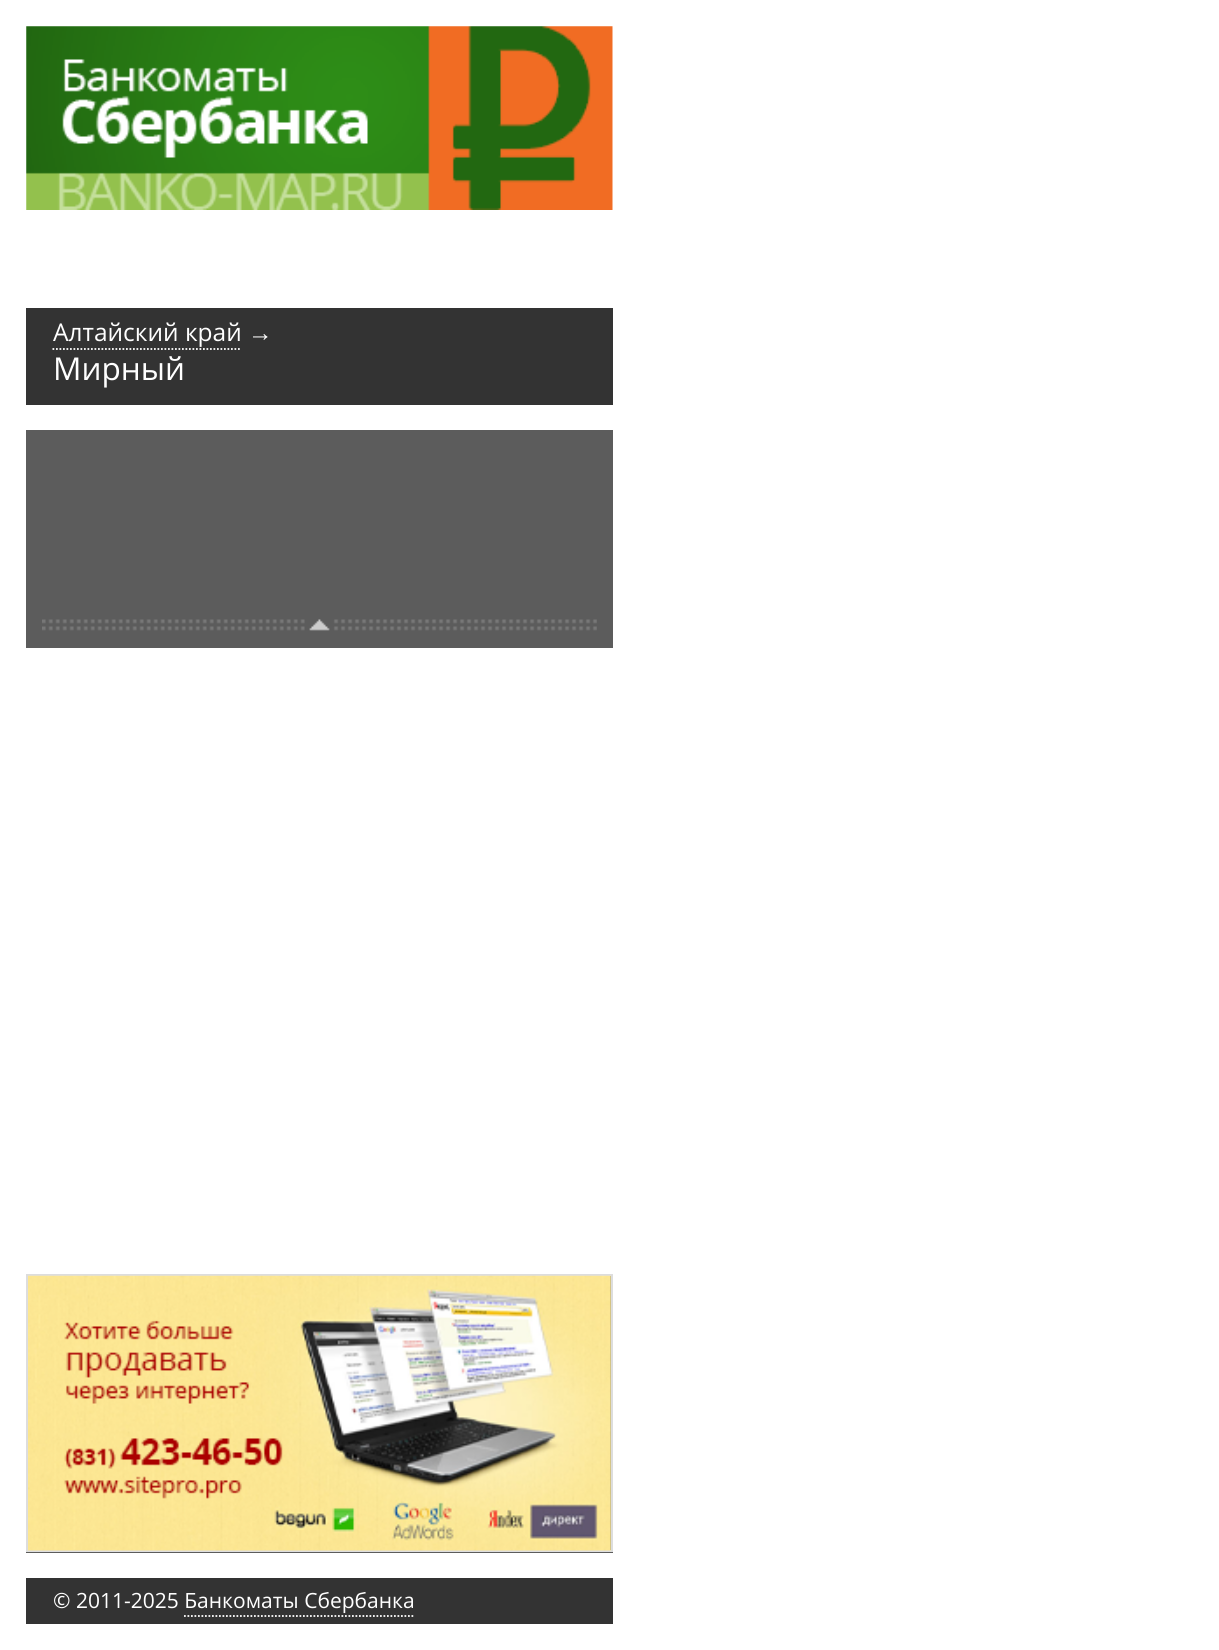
#include <cairo.h>
#include <math.h>
#include <stddef.h>


static void ink(cairo_t *ctx, unsigned color) {
    cairo_set_source_rgb(ctx, (color >> 16) / 255.0, (color >> 8 & 255) / 255.0, (color & 255) / 255.0);
}

static void paste(cairo_t *ctx, const char *path, double x, double y, double w, double h) {
    cairo_surface_t *image = cairo_image_surface_create_from_png(path);
    cairo_save(ctx);
    cairo_set_source_surface(ctx, image, x, y);
    cairo_rectangle(ctx, x, y, w, h);
    cairo_fill(ctx);
    cairo_restore(ctx);
    cairo_surface_destroy(image);
}

int main(void) {
    cairo_surface_t *surface = cairo_image_surface_create(CAIRO_FORMAT_RGB24, 1219, 1650);
    cairo_t *ctx = cairo_create(surface);
    cairo_font_options_t *options = cairo_font_options_create();
    cairo_font_options_set_hint_metrics(options, CAIRO_HINT_METRICS_OFF);
    cairo_font_options_set_hint_style(options, CAIRO_HINT_STYLE_NONE);
    cairo_set_font_options(ctx, options);
    cairo_set_miter_limit(ctx, 4);
    ink(ctx, 0xFFFFFF);
    cairo_paint(ctx);
    paste(ctx, "media/1.png", 26, 26, 587, 184);
    ink(ctx, 0x333333);
    cairo_rectangle(ctx, 26, 308, 587, 97);
    cairo_fill(ctx);
    cairo_select_font_face(ctx, "Open Sans", CAIRO_FONT_SLANT_NORMAL, CAIRO_FONT_WEIGHT_NORMAL);
    cairo_set_font_size(ctx, 24.5);
    ink(ctx, 0xFFFFFF);
    cairo_move_to(ctx, 53, 341);
    cairo_show_text(ctx, "Алтайский край");
    cairo_new_path(ctx);
    cairo_move_to(ctx, 52.5, 349);
    cairo_line_to(ctx, 241.5, 349);
    cairo_set_line_width(ctx, 1.8);
    cairo_set_dash(ctx, (double[]){1.75, 1.75}, 2, 0);
    cairo_stroke(ctx);
    cairo_select_font_face(ctx, "Liberation Sans", CAIRO_FONT_SLANT_NORMAL, CAIRO_FONT_WEIGHT_NORMAL);
    cairo_move_to(ctx, 248, 341);
    cairo_show_text(ctx, "→");
    cairo_select_font_face(ctx, "Open Sans", CAIRO_FONT_SLANT_NORMAL, CAIRO_FONT_WEIGHT_NORMAL);
    cairo_set_font_size(ctx, 31.5);
    cairo_move_to(ctx, 53, 380);
    cairo_show_text(ctx, "Мирный");
    ink(ctx, 0x5C5C5C);
    cairo_rectangle(ctx, 26, 430, 587, 218);
    cairo_fill(ctx);
    paste(ctx, "media/2.png", 42, 619, 555, 12);
    cairo_rectangle(ctx, 26, 1276, 587, 277);
    cairo_fill(ctx);
    cairo_rectangle(ctx, 27, 1275, 585, 276);
    ink(ctx, 0xDDDDDD);
    cairo_set_line_width(ctx, 2);
    cairo_set_dash(ctx, NULL, 0, 0);
    cairo_stroke(ctx);
    paste(ctx, "media/3.png", 28, 1275, 583, 276);
    ink(ctx, 0x333333);
    cairo_rectangle(ctx, 26, 1578, 587, 46);
    cairo_fill(ctx);
    cairo_set_font_size(ctx, 21);
    ink(ctx, 0xFFFFFF);
    cairo_move_to(ctx, 53, 1608);
    cairo_show_text(ctx, "© 2011-2025 Банкоматы Сбербанка");
    cairo_new_path(ctx);
    cairo_move_to(ctx, 184, 1616);
    cairo_line_to(ctx, 415, 1616);
    cairo_set_line_width(ctx, 1.8);
    cairo_set_dash(ctx, (double[]){1.75, 1.75}, 2, 0);
    cairo_stroke(ctx);
    cairo_surface_write_to_png(surface, "image.png");
    cairo_font_options_destroy(options);
    cairo_destroy(ctx);
    cairo_surface_destroy(surface);
    return 0;
}
